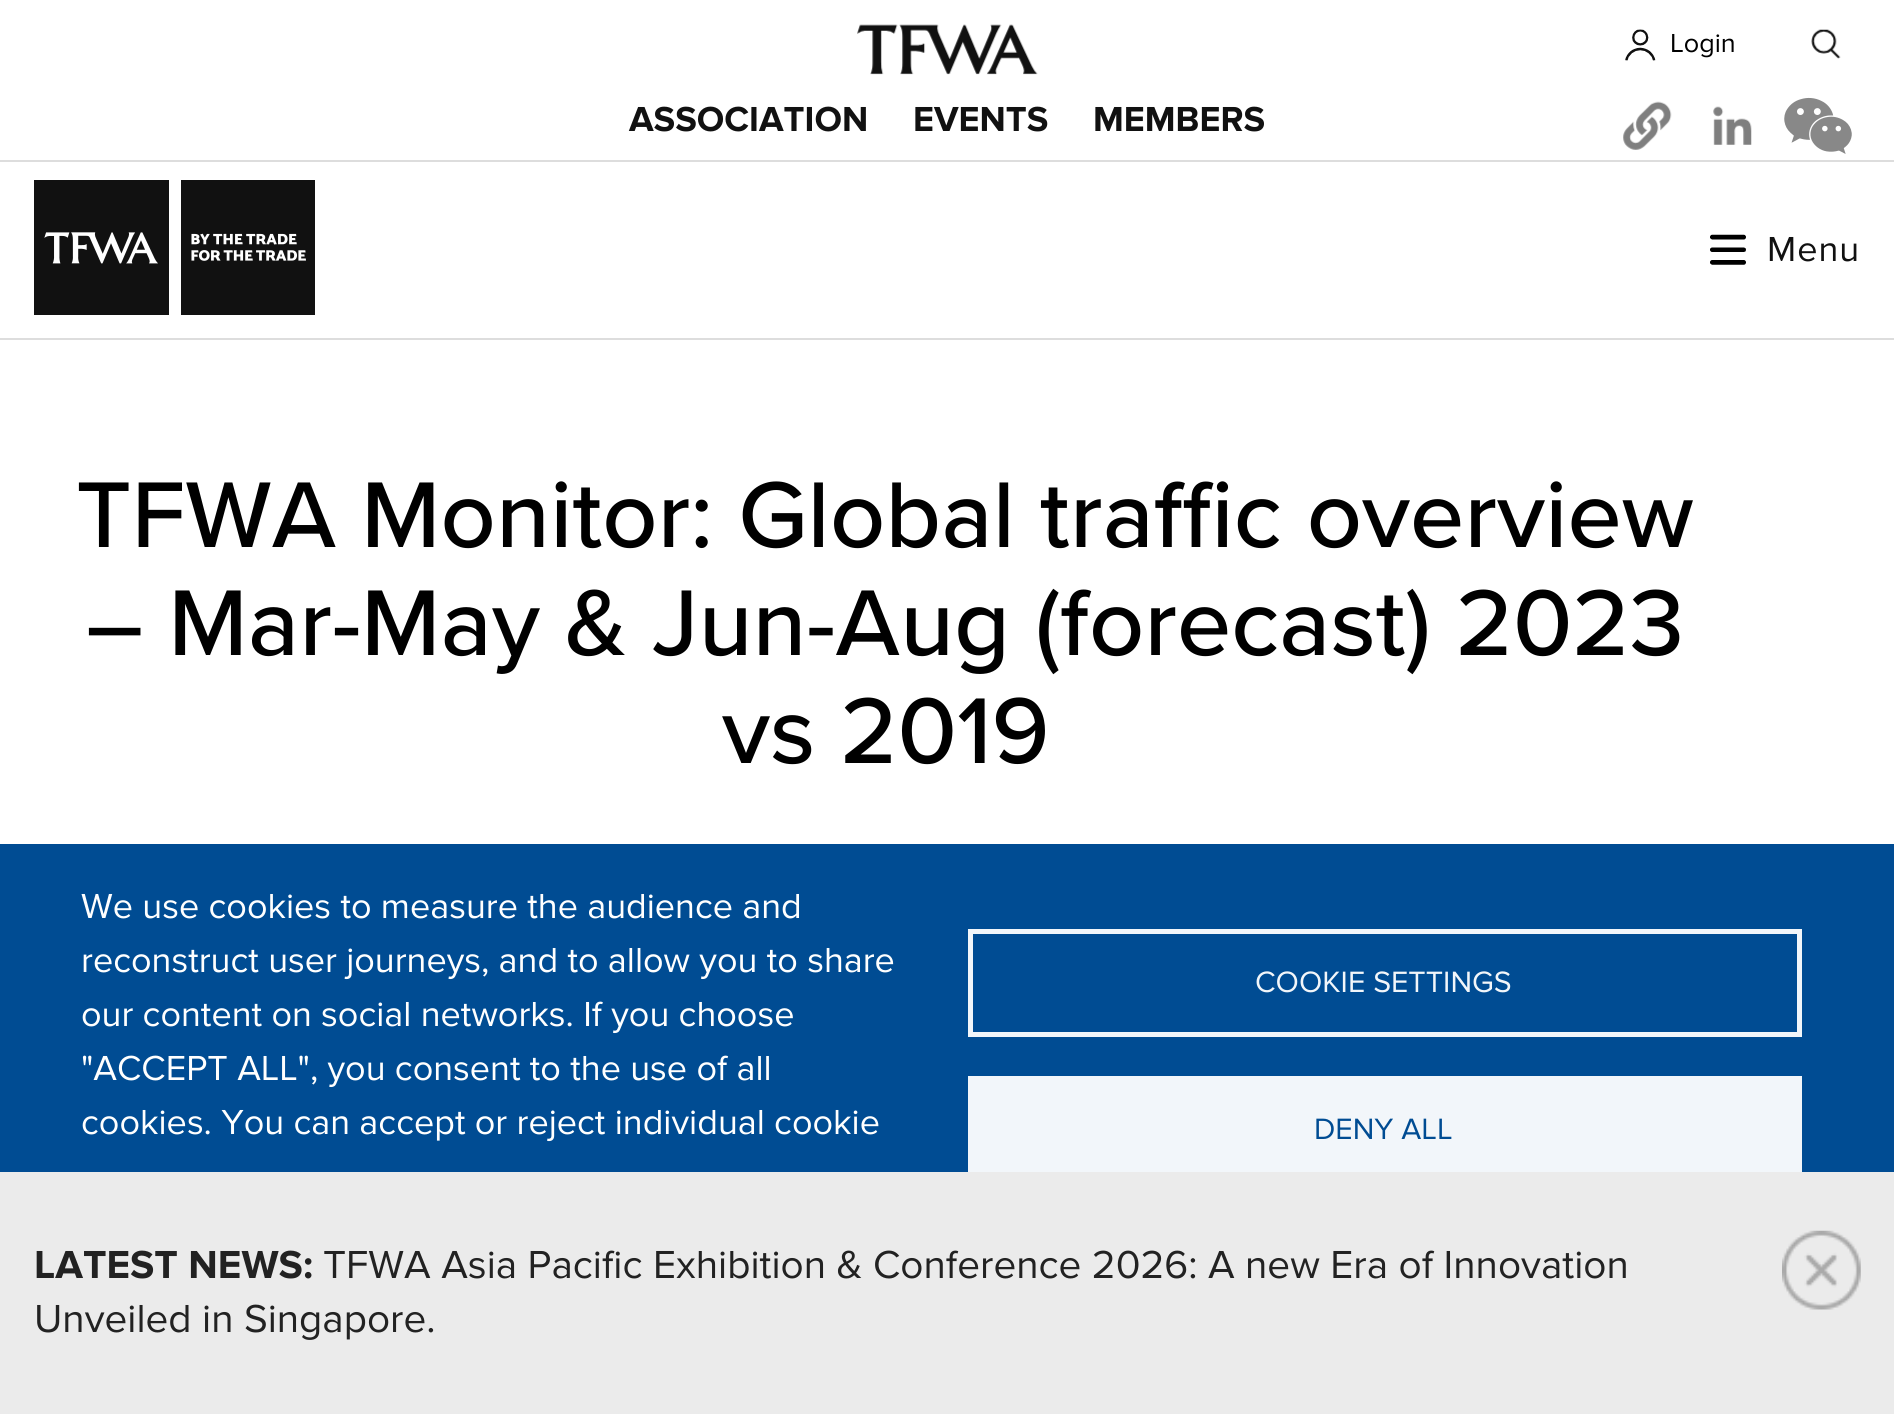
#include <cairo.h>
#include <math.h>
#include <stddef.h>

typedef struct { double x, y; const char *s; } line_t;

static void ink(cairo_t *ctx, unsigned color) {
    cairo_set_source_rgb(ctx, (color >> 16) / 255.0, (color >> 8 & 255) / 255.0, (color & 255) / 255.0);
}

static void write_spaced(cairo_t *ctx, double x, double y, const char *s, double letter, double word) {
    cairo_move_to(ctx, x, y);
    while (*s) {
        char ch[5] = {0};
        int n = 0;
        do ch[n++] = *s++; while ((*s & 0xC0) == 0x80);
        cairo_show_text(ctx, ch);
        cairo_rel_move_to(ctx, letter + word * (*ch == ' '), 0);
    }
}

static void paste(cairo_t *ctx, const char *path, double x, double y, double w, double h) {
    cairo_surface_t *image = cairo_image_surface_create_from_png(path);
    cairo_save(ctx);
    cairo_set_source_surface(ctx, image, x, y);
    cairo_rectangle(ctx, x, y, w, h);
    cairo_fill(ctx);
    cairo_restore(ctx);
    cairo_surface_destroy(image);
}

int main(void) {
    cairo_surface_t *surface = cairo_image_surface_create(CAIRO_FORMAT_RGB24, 1894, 1414);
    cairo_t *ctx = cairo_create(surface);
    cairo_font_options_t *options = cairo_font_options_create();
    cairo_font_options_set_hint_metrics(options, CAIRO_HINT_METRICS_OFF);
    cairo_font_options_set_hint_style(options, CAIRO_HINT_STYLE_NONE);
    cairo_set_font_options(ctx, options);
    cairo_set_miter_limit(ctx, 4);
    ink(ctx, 0xFFFFFF);
    cairo_paint(ctx);
    paste(ctx, "media/1.png", 857, 24, 181, 51);
    paste(ctx, "media/2.png", 1625, 29, 31, 32);
    cairo_select_font_face(ctx, "Proxima Nova", CAIRO_FONT_SLANT_NORMAL, CAIRO_FONT_WEIGHT_NORMAL);
    cairo_set_font_size(ctx, 27);
    ink(ctx, 0x000000);
    cairo_move_to(ctx, 1670, 52);
    cairo_show_text(ctx, "Login");
    paste(ctx, "media/3.png", 1811, 29, 30, 30);
    ink(ctx, 0xDDDDDD);
    cairo_rectangle(ctx, 0, 160, 1894, 2);
    cairo_fill(ctx);
    cairo_select_font_face(ctx, "Proxima Nova", CAIRO_FONT_SLANT_NORMAL, CAIRO_FONT_WEIGHT_BOLD);
    cairo_set_font_size(ctx, 36);
    ink(ctx, 0x111111);
    {
        static const line_t items[] = {
            {629, 131, "ASSOCIATION"},
            {913, 131, "EVENTS"},
            {1093, 131, "MEMBERS"},
        };
        for (size_t i = 0; i < sizeof items / sizeof *items; i++) {
            cairo_move_to(ctx, items[i].x, items[i].y);
            cairo_show_text(ctx, items[i].s);
        }
    }
    paste(ctx, "media/4.png", 1623, 101, 49, 49);
    paste(ctx, "media/5.png", 1713, 106, 39, 39);
    paste(ctx, "media/6.png", 1784, 97, 68, 57);
    paste(ctx, "media/7.png", 34, 180, 281, 135);
    ink(ctx, 0xDDDDDD);
    cairo_rectangle(ctx, 0, 338, 1894, 2);
    cairo_fill(ctx);
    paste(ctx, "media/8.png", 1710, 234, 36, 31);
    cairo_select_font_face(ctx, "Proxima Nova", CAIRO_FONT_SLANT_NORMAL, CAIRO_FONT_WEIGHT_NORMAL);
    ink(ctx, 0x111111);
    write_spaced(ctx, 1767, 261, "Menu", 1, 0);
    cairo_select_font_face(ctx, "Proxima Nova Medium", CAIRO_FONT_SLANT_NORMAL, CAIRO_FONT_WEIGHT_NORMAL);
    cairo_set_font_size(ctx, 96.75);
    ink(ctx, 0x000000);
    {
        static const line_t items[] = {
            {76, 547, "TFWA Monitor: Global traffic overview"},
            {86, 655, "– Mar-May & Jun-Aug (forecast) 2023"},
            {722, 763, "vs 2019"},
        };
        for (size_t i = 0; i < sizeof items / sizeof *items; i++) {
            cairo_move_to(ctx, items[i].x, items[i].y);
            cairo_show_text(ctx, items[i].s);
        }
    }
    ink(ctx, 0xEBEBEB);
    cairo_rectangle(ctx, 0, 1172, 1894, 242);
    cairo_fill(ctx);
    cairo_select_font_face(ctx, "Proxima Nova", CAIRO_FONT_SLANT_NORMAL, CAIRO_FONT_WEIGHT_BOLD);
    cairo_set_font_size(ctx, 40.5);
    ink(ctx, 0x222222);
    cairo_move_to(ctx, 34, 1278);
    cairo_show_text(ctx, "LATEST NEWS:");
    cairo_select_font_face(ctx, "Proxima Nova", CAIRO_FONT_SLANT_NORMAL, CAIRO_FONT_WEIGHT_NORMAL);
    cairo_move_to(ctx, 323, 1278);
    cairo_show_text(ctx, "TFWA Asia Pacific Exhibition & Conference 2026: A new Era of Innovation");
    cairo_move_to(ctx, 34, 1332);
    cairo_show_text(ctx, "Unveiled in Singapore.");
    paste(ctx, "media/9.png", 1782, 1230, 79, 80);
    ink(ctx, 0x004C93);
    cairo_rectangle(ctx, 0, 844, 1894, 328);
    cairo_fill(ctx);
    cairo_set_font_size(ctx, 36);
    ink(ctx, 0xFFFFFF);
    {
        static const line_t items[] = {
            {81, 918, "We use cookies to measure the audience and"},
            {81, 972, "reconstruct user journeys, and to allow you to share"},
            {81, 1026, "our content on social networks. If you choose"},
            {81, 1080, "\"ACCEPT ALL\", you consent to the use of all"},
            {81, 1134, "cookies. You can accept or reject individual cookie"},
        };
        for (size_t i = 0; i < sizeof items / sizeof *items; i++) {
            cairo_move_to(ctx, items[i].x, items[i].y);
            cairo_show_text(ctx, items[i].s);
        }
    }
    cairo_rectangle(ctx, 970.5, 931.5, 829, 103);
    ink(ctx, 0xF2F6FA);
    cairo_set_line_width(ctx, 5);
    cairo_stroke(ctx);
    cairo_set_font_size(ctx, 30.5);
    cairo_move_to(ctx, 1255, 992);
    cairo_show_text(ctx, "COOKIE SETTINGS");
    cairo_rectangle(ctx, 968, 1076, 834, 96);
    cairo_fill(ctx);
    ink(ctx, 0x004C93);
    cairo_move_to(ctx, 1314, 1139);
    cairo_show_text(ctx, "DENY ALL");
    cairo_surface_write_to_png(surface, "image.png");
    cairo_font_options_destroy(options);
    cairo_destroy(ctx);
    cairo_surface_destroy(surface);
    return 0;
}
